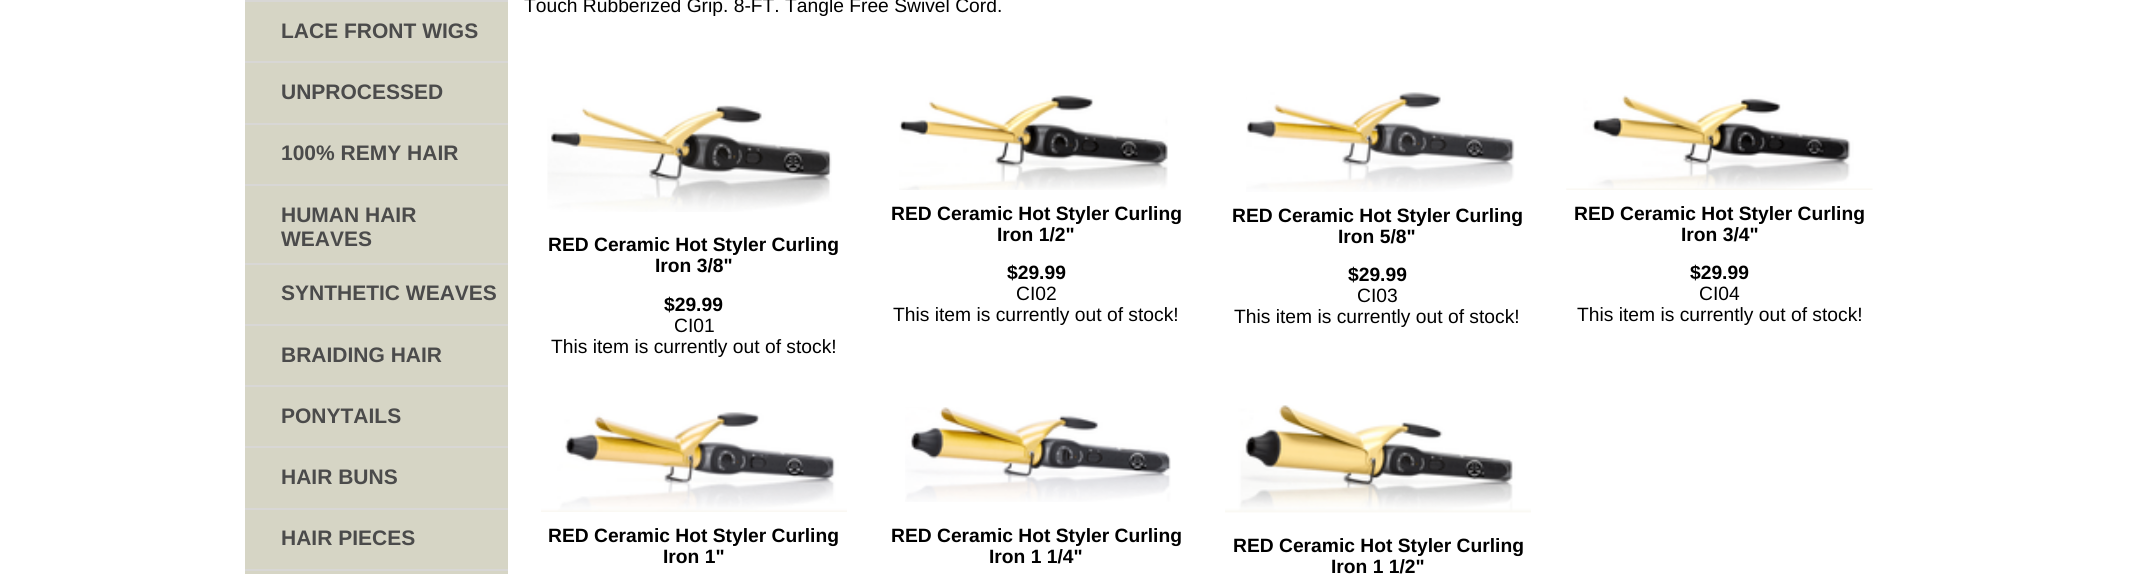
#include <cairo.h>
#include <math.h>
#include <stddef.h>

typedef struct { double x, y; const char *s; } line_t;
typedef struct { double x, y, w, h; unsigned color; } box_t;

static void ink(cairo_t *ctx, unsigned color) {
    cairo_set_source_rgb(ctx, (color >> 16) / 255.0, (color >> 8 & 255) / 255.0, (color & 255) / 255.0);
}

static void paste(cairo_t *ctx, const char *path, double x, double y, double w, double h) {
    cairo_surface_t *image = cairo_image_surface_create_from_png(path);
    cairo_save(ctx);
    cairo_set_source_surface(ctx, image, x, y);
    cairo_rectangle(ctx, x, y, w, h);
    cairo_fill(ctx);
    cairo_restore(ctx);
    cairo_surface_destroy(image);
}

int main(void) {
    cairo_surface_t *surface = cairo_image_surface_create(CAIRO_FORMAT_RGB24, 2150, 574);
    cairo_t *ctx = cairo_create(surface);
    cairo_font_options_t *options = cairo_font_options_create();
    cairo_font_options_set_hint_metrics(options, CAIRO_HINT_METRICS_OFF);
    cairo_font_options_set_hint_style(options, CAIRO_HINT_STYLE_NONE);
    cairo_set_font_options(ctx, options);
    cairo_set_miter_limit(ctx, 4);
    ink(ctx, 0xFFFFFF);
    cairo_paint(ctx);
    {
        static const box_t items[] = {
            {245, 2, 263, 572, 0xD6D5C5},
            {245, 0, 263, 2, 0xD8D7D5},
            {245, 61, 263, 2, 0xD8D7D5},
        };
        for (size_t i = 0; i < sizeof items / sizeof *items; i++) {
            ink(ctx, items[i].color);
            cairo_rectangle(ctx, items[i].x, items[i].y, items[i].w, items[i].h);
            cairo_fill(ctx);
        }
    }
    cairo_select_font_face(ctx, "Liberation Sans", CAIRO_FONT_SLANT_NORMAL, CAIRO_FONT_WEIGHT_BOLD);
    cairo_set_font_size(ctx, 21);
    ink(ctx, 0x4B4B4B);
    cairo_move_to(ctx, 281, 38);
    cairo_show_text(ctx, "LACE FRONT WIGS");
    ink(ctx, 0xD8D7D5);
    cairo_rectangle(ctx, 245, 123, 263, 2);
    cairo_fill(ctx);
    ink(ctx, 0x4B4B4B);
    cairo_move_to(ctx, 281, 99);
    cairo_show_text(ctx, "UNPROCESSED");
    ink(ctx, 0xD8D7D5);
    cairo_rectangle(ctx, 245, 184, 263, 2);
    cairo_fill(ctx);
    ink(ctx, 0x4B4B4B);
    cairo_move_to(ctx, 281, 160);
    cairo_show_text(ctx, "100% REMY HAIR");
    ink(ctx, 0xD8D7D5);
    cairo_rectangle(ctx, 245, 263, 263, 2);
    cairo_fill(ctx);
    ink(ctx, 0x4B4B4B);
    cairo_move_to(ctx, 281, 222);
    cairo_show_text(ctx, "HUMAN HAIR");
    cairo_move_to(ctx, 281, 246);
    cairo_show_text(ctx, "WEAVES");
    ink(ctx, 0xD8D7D5);
    cairo_rectangle(ctx, 245, 324, 263, 2);
    cairo_fill(ctx);
    ink(ctx, 0x4B4B4B);
    cairo_move_to(ctx, 281, 300);
    cairo_show_text(ctx, "SYNTHETIC WEAVES");
    ink(ctx, 0xD8D7D5);
    cairo_rectangle(ctx, 245, 385, 263, 2);
    cairo_fill(ctx);
    ink(ctx, 0x4B4B4B);
    cairo_move_to(ctx, 281, 362);
    cairo_show_text(ctx, "BRAIDING HAIR");
    ink(ctx, 0xD8D7D5);
    cairo_rectangle(ctx, 245, 446, 263, 2);
    cairo_fill(ctx);
    ink(ctx, 0x4B4B4B);
    cairo_move_to(ctx, 281, 423);
    cairo_show_text(ctx, "PONYTAILS");
    ink(ctx, 0xD8D7D5);
    cairo_rectangle(ctx, 245, 508, 263, 2);
    cairo_fill(ctx);
    ink(ctx, 0x4B4B4B);
    cairo_move_to(ctx, 281, 484);
    cairo_show_text(ctx, "HAIR BUNS");
    ink(ctx, 0xD8D7D5);
    cairo_rectangle(ctx, 245, 569, 263, 2);
    cairo_fill(ctx);
    ink(ctx, 0x4B4B4B);
    cairo_move_to(ctx, 281, 545);
    cairo_show_text(ctx, "HAIR PIECES");
    cairo_select_font_face(ctx, "Liberation Sans", CAIRO_FONT_SLANT_NORMAL, CAIRO_FONT_WEIGHT_NORMAL);
    cairo_set_font_size(ctx, 19.25);
    ink(ctx, 0x000000);
    cairo_move_to(ctx, 524, 12);
    cairo_show_text(ctx, "Touch Rubberized Grip. 8-FT. Tangle Free Swivel Cord.");
    paste(ctx, "media/1.png", 547, 105, 285, 107);
    cairo_select_font_face(ctx, "Liberation Sans", CAIRO_FONT_SLANT_NORMAL, CAIRO_FONT_WEIGHT_BOLD);
    {
        static const line_t items[] = {
            {548, 251, "RED Ceramic Hot Styler Curling"},
            {655, 272, "Iron 3/8\""},
            {664, 311, "$29.99"},
        };
        for (size_t i = 0; i < sizeof items / sizeof *items; i++) {
            cairo_move_to(ctx, items[i].x, items[i].y);
            cairo_show_text(ctx, items[i].s);
        }
    }
    cairo_select_font_face(ctx, "Liberation Sans", CAIRO_FONT_SLANT_NORMAL, CAIRO_FONT_WEIGHT_NORMAL);
    cairo_move_to(ctx, 674, 332);
    cairo_show_text(ctx, "CI01");
    cairo_move_to(ctx, 551, 353);
    cairo_show_text(ctx, "This item is currently out of stock!");
    paste(ctx, "media/2.png", 899, 95, 269, 95);
    cairo_select_font_face(ctx, "Liberation Sans", CAIRO_FONT_SLANT_NORMAL, CAIRO_FONT_WEIGHT_BOLD);
    {
        static const line_t items[] = {
            {891, 220, "RED Ceramic Hot Styler Curling"},
            {997, 241, "Iron 1/2\""},
            {1007, 279, "$29.99"},
        };
        for (size_t i = 0; i < sizeof items / sizeof *items; i++) {
            cairo_move_to(ctx, items[i].x, items[i].y);
            cairo_show_text(ctx, items[i].s);
        }
    }
    cairo_select_font_face(ctx, "Liberation Sans", CAIRO_FONT_SLANT_NORMAL, CAIRO_FONT_WEIGHT_NORMAL);
    cairo_move_to(ctx, 1016, 300);
    cairo_show_text(ctx, "CI02");
    cairo_move_to(ctx, 893, 321);
    cairo_show_text(ctx, "This item is currently out of stock!");
    paste(ctx, "media/3.png", 1246, 92, 269, 100);
    cairo_select_font_face(ctx, "Liberation Sans", CAIRO_FONT_SLANT_NORMAL, CAIRO_FONT_WEIGHT_BOLD);
    {
        static const line_t items[] = {
            {1232, 222, "RED Ceramic Hot Styler Curling"},
            {1338, 243, "Iron 5/8\""},
            {1348, 281, "$29.99"},
        };
        for (size_t i = 0; i < sizeof items / sizeof *items; i++) {
            cairo_move_to(ctx, items[i].x, items[i].y);
            cairo_show_text(ctx, items[i].s);
        }
    }
    cairo_select_font_face(ctx, "Liberation Sans", CAIRO_FONT_SLANT_NORMAL, CAIRO_FONT_WEIGHT_NORMAL);
    cairo_move_to(ctx, 1357, 302);
    cairo_show_text(ctx, "CI03");
    cairo_move_to(ctx, 1234, 323);
    cairo_show_text(ctx, "This item is currently out of stock!");
    paste(ctx, "media/4.png", 1566, 95, 307, 95);
    cairo_select_font_face(ctx, "Liberation Sans", CAIRO_FONT_SLANT_NORMAL, CAIRO_FONT_WEIGHT_BOLD);
    {
        static const line_t items[] = {
            {1574, 220, "RED Ceramic Hot Styler Curling"},
            {1681, 241, "Iron 3/4\""},
            {1690, 279, "$29.99"},
        };
        for (size_t i = 0; i < sizeof items / sizeof *items; i++) {
            cairo_move_to(ctx, items[i].x, items[i].y);
            cairo_show_text(ctx, items[i].s);
        }
    }
    cairo_select_font_face(ctx, "Liberation Sans", CAIRO_FONT_SLANT_NORMAL, CAIRO_FONT_WEIGHT_NORMAL);
    cairo_move_to(ctx, 1699, 300);
    cairo_show_text(ctx, "CI04");
    cairo_move_to(ctx, 1577, 321);
    cairo_show_text(ctx, "This item is currently out of stock!");
    paste(ctx, "media/5.png", 541, 412, 306, 100);
    cairo_select_font_face(ctx, "Liberation Sans", CAIRO_FONT_SLANT_NORMAL, CAIRO_FONT_WEIGHT_BOLD);
    cairo_move_to(ctx, 548, 542);
    cairo_show_text(ctx, "RED Ceramic Hot Styler Curling");
    cairo_move_to(ctx, 663, 563);
    cairo_show_text(ctx, "Iron 1\"");
    paste(ctx, "media/6.png", 905, 407, 266, 95);
    cairo_move_to(ctx, 891, 542);
    cairo_show_text(ctx, "RED Ceramic Hot Styler Curling");
    cairo_move_to(ctx, 989, 563);
    cairo_show_text(ctx, "Iron 1 1/4\"");
    paste(ctx, "media/7.png", 1225, 405, 306, 108);
    cairo_move_to(ctx, 1233, 552);
    cairo_show_text(ctx, "RED Ceramic Hot Styler Curling");
    cairo_move_to(ctx, 1331, 573);
    cairo_show_text(ctx, "Iron 1 1/2\"");
    cairo_surface_write_to_png(surface, "image.png");
    cairo_font_options_destroy(options);
    cairo_destroy(ctx);
    cairo_surface_destroy(surface);
    return 0;
}
